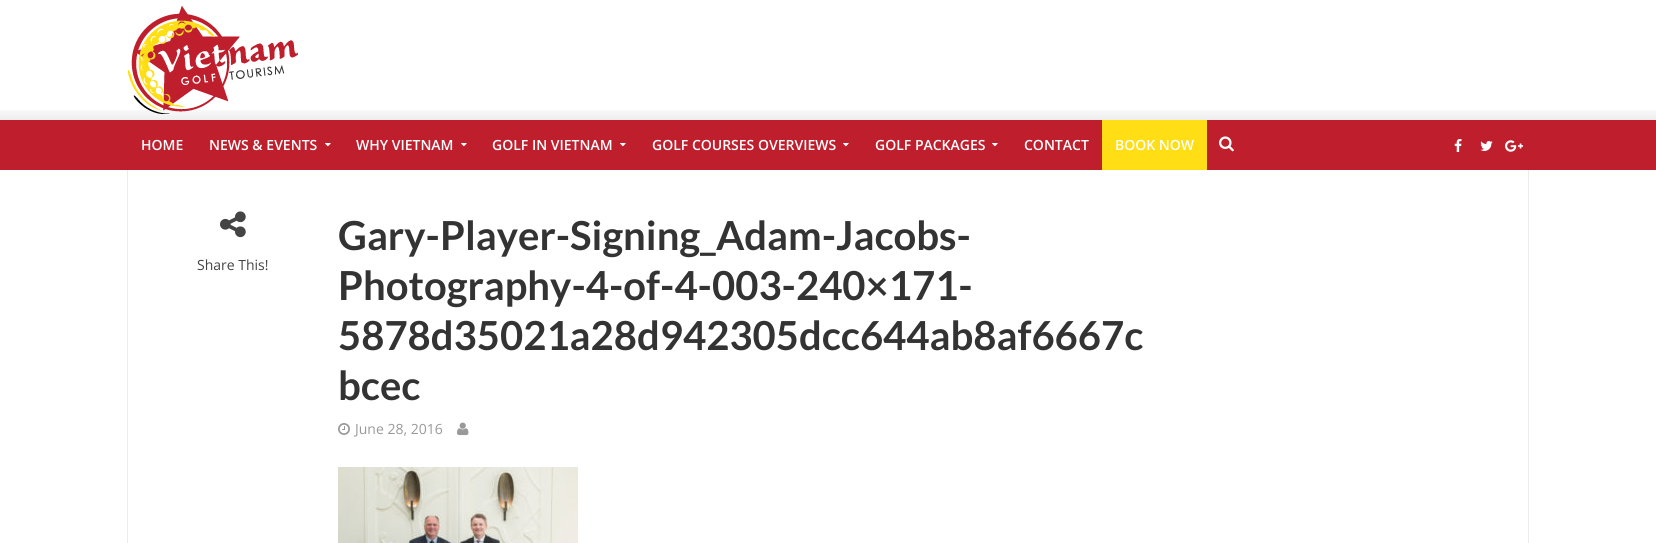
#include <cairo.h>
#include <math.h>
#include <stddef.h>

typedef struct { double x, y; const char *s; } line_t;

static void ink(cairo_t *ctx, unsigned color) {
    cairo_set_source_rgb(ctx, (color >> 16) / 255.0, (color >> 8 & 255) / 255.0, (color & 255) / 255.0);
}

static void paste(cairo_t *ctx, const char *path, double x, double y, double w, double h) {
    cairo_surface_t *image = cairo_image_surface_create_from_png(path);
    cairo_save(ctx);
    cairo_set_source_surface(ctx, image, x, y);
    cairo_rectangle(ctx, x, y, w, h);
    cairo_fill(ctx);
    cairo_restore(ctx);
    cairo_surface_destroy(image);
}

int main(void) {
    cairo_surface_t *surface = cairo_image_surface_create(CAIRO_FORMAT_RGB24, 1656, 543);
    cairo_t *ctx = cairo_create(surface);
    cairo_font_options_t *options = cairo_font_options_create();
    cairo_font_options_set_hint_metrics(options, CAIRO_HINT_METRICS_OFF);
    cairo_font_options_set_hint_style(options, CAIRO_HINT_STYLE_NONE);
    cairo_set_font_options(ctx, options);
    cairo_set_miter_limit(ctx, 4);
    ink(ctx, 0xFFFFFF);
    cairo_paint(ctx);
    paste(ctx, "media/1.png", 0, 110, 1656, 10);
    paste(ctx, "media/2.png", 128, 6, 170, 108);
    cairo_rectangle(ctx, 127.5, 169.5, 1401, 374);
    ink(ctx, 0xECECEC);
    cairo_set_line_width(ctx, 1);
    cairo_stroke(ctx);
    ink(ctx, 0xBF1E2D);
    cairo_rectangle(ctx, 0, 120, 1656, 50);
    cairo_fill(ctx);
    cairo_select_font_face(ctx, "Open Sans SemiBold", CAIRO_FONT_SLANT_NORMAL, CAIRO_FONT_WEIGHT_NORMAL);
    cairo_set_font_size(ctx, 14);
    ink(ctx, 0xFFFFFF);
    cairo_move_to(ctx, 141, 150);
    cairo_show_text(ctx, "HOME");
    cairo_move_to(ctx, 209, 150);
    cairo_show_text(ctx, "NEWS & EVENTS");
    paste(ctx, "media/3.png", 325, 143, 6, 4);
    cairo_move_to(ctx, 356, 150);
    cairo_show_text(ctx, "WHY VIETNAM");
    paste(ctx, "media/3.png", 461, 143, 6, 4);
    cairo_move_to(ctx, 492, 150);
    cairo_show_text(ctx, "GOLF IN VIETNAM");
    paste(ctx, "media/3.png", 620, 143, 6, 4);
    cairo_move_to(ctx, 652, 150);
    cairo_show_text(ctx, "GOLF COURSES OVERVIEWS");
    paste(ctx, "media/3.png", 843, 143, 6, 4);
    cairo_move_to(ctx, 875, 150);
    cairo_show_text(ctx, "GOLF PACKAGES");
    paste(ctx, "media/3.png", 992, 143, 6, 4);
    cairo_move_to(ctx, 1024, 150);
    cairo_show_text(ctx, "CONTACT");
    ink(ctx, 0xFFDE16);
    cairo_rectangle(ctx, 1102, 120, 105, 50);
    cairo_fill(ctx);
    ink(ctx, 0xFFFFFF);
    cairo_move_to(ctx, 1115, 150);
    cairo_show_text(ctx, "BOOK NOW");
    paste(ctx, "media/4.png", 1219, 136, 15, 16);
    paste(ctx, "media/5.png", 1454, 139, 8, 13);
    paste(ctx, "media/6.png", 1480, 141, 13, 10);
    paste(ctx, "media/7.png", 1505, 140, 18, 12);
    paste(ctx, "media/8.png", 220, 211, 26, 27);
    cairo_select_font_face(ctx, "Open Sans", CAIRO_FONT_SLANT_NORMAL, CAIRO_FONT_WEIGHT_NORMAL);
    ink(ctx, 0x444444);
    cairo_move_to(ctx, 197, 270);
    cairo_show_text(ctx, "Share This!");
    cairo_select_font_face(ctx, "Lato", CAIRO_FONT_SLANT_NORMAL, CAIRO_FONT_WEIGHT_BOLD);
    cairo_set_font_size(ctx, 40);
    ink(ctx, 0x333333);
    {
        static const line_t items[] = {
            {338, 250, "Gary-Player-Signing_Adam-Jacobs-"},
            {338, 300, "Photography-4-of-4-003-240×171-"},
            {338, 350, "5878d35021a28d942305dcc644ab8af6667c"},
            {338, 400, "bcec"},
        };
        for (size_t i = 0; i < sizeof items / sizeof *items; i++) {
            cairo_move_to(ctx, items[i].x, items[i].y);
            cairo_show_text(ctx, items[i].s);
        }
    }
    paste(ctx, "media/9.png", 338, 423, 12, 12);
    cairo_select_font_face(ctx, "Open Sans", CAIRO_FONT_SLANT_NORMAL, CAIRO_FONT_WEIGHT_NORMAL);
    cairo_set_font_size(ctx, 14);
    ink(ctx, 0x999999);
    cairo_move_to(ctx, 355, 434);
    cairo_show_text(ctx, "June 28, 2016");
    paste(ctx, "media/10.png", 457, 422, 12, 14);
    paste(ctx, "media/11.png", 338, 467, 240, 76);
    cairo_surface_write_to_png(surface, "image.png");
    cairo_font_options_destroy(options);
    cairo_destroy(ctx);
    cairo_surface_destroy(surface);
    return 0;
}
